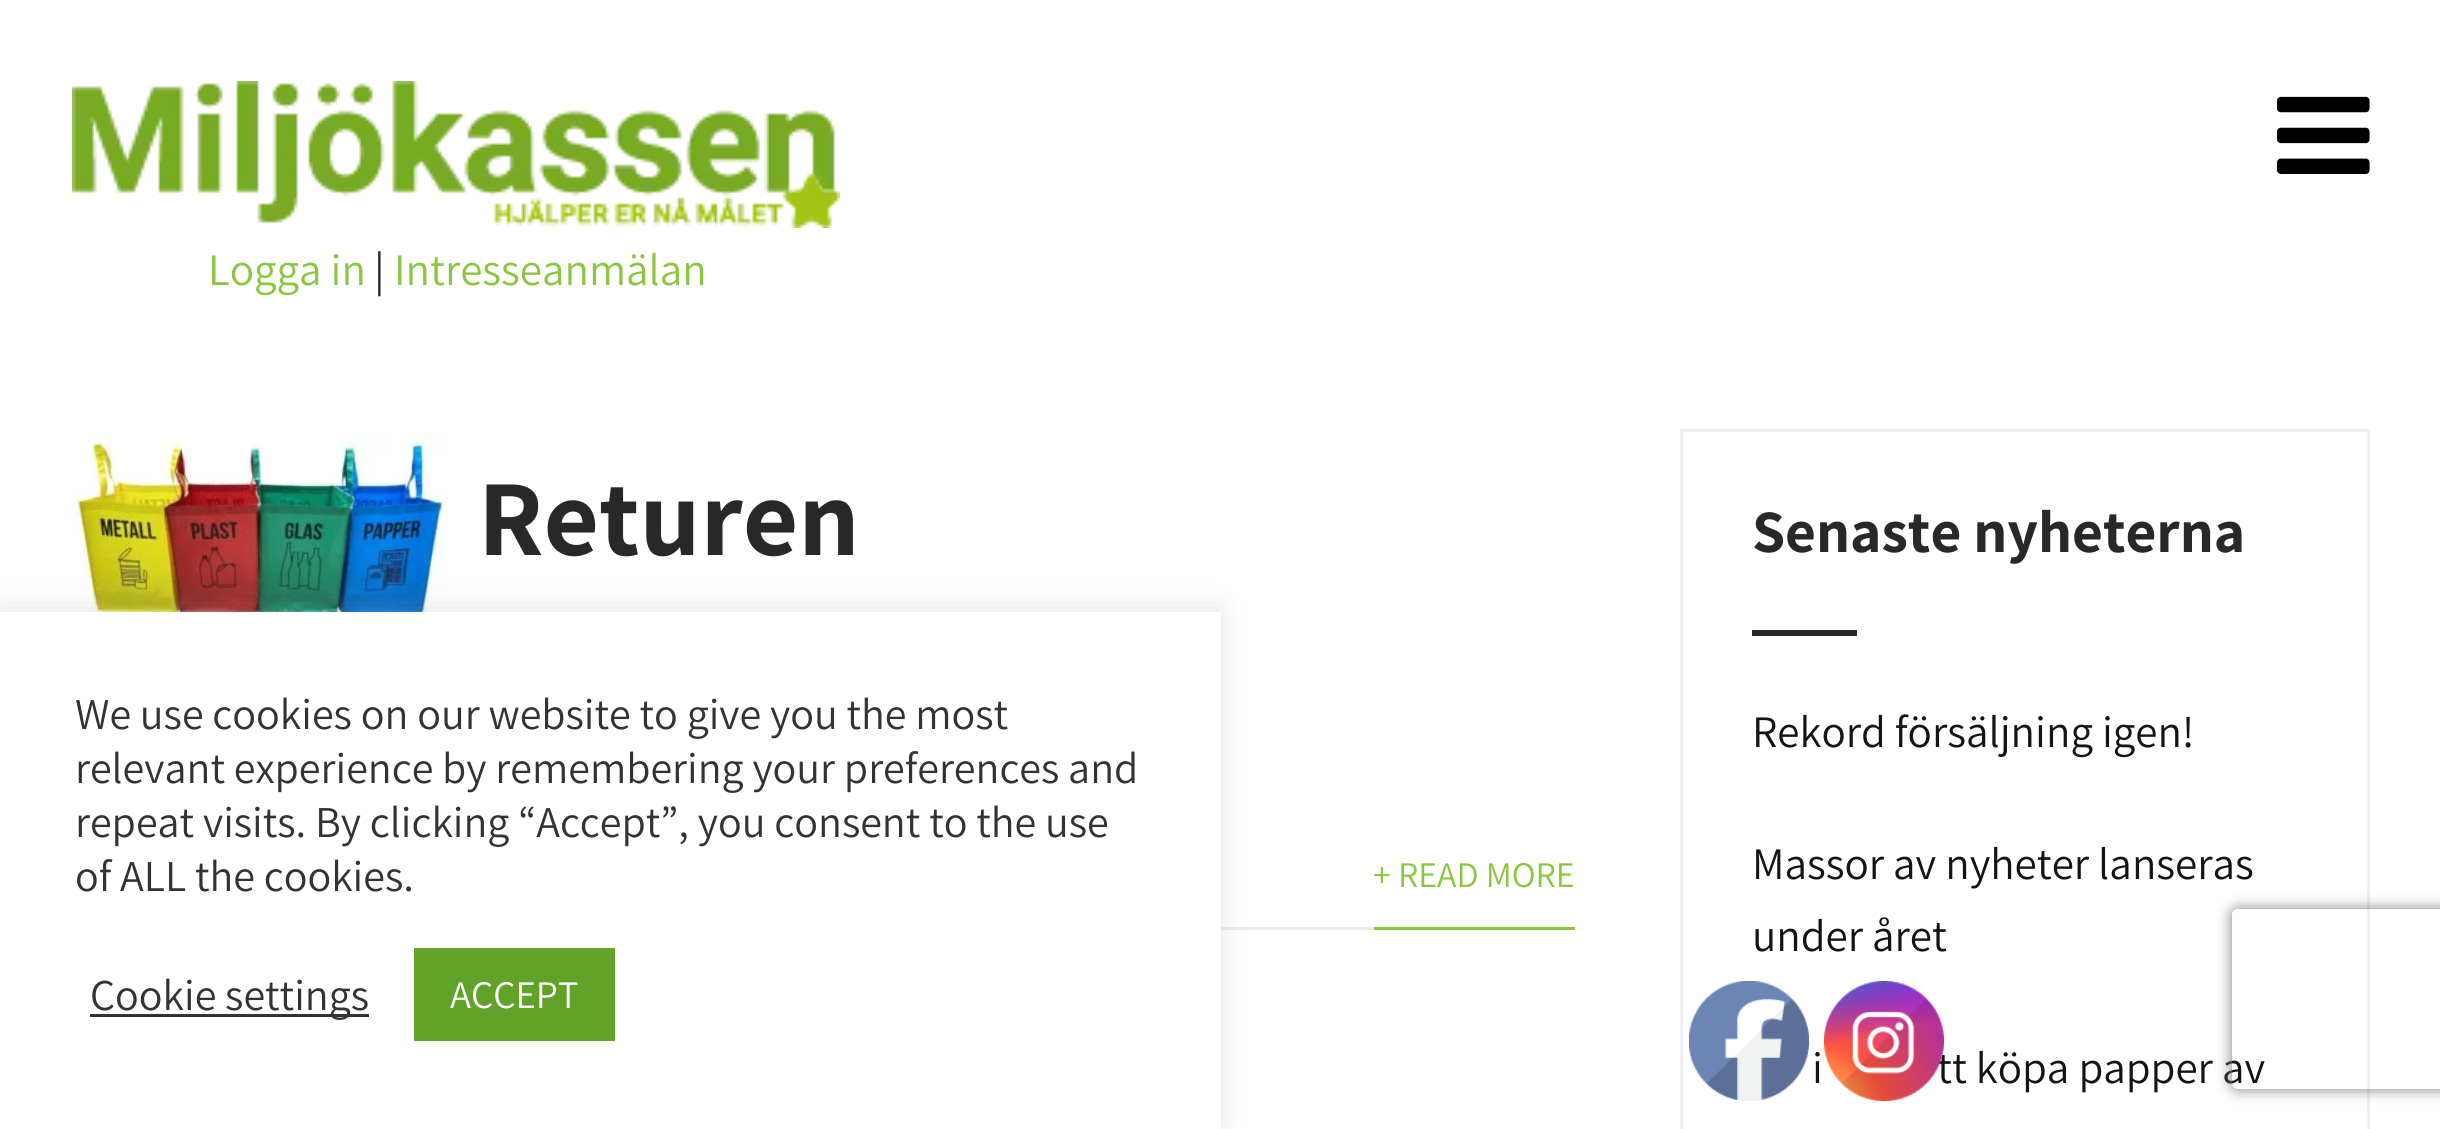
#include <cairo.h>
#include <math.h>
#include <stddef.h>

typedef struct { double x, y; const char *s; } line_t;

static void ink(cairo_t *ctx, unsigned color) {
    cairo_set_source_rgb(ctx, (color >> 16) / 255.0, (color >> 8 & 255) / 255.0, (color & 255) / 255.0);
}

static void round_path(cairo_t *ctx, double x, double y, double w, double h, double r) {
    cairo_new_sub_path(ctx);
    cairo_arc(ctx, x + w - r, y + h - r, r, 0, M_PI / 2);
    cairo_arc(ctx, x + r, y + h - r, r, M_PI / 2, M_PI);
    cairo_arc(ctx, x + r, y + r, r, M_PI, 1.5 * M_PI);
    cairo_arc(ctx, x + w - r, y + r, r, 1.5 * M_PI, 2 * M_PI);
    cairo_close_path(ctx);
}

static void blur_box(cairo_t *ctx, double x, double y, double w, double h, double r, double blur, double alpha) {
    cairo_push_group_with_content(ctx, CAIRO_CONTENT_ALPHA);
    cairo_set_operator(ctx, CAIRO_OPERATOR_SOURCE);
    for (int i = 15; i >= -15 && fmin(w, h) + blur * i / 3 > 0; i -= 2) {
        double e = blur * i / 6;
        cairo_set_source_rgba(ctx, 0, 0, 0, alpha * erfc((i - 1) / 8.5) / 2);
        round_path(ctx, x - e, y - e, w + 2 * e, h + 2 * e, fmax(0, fmin(r + e + blur * .6, fmin(w, h) / 2 + e)));
        cairo_fill(ctx);
    }
    cairo_pattern_t *soft = cairo_pop_group(ctx);
    cairo_mask(ctx, soft);
    cairo_pattern_destroy(soft);
}

static void paste(cairo_t *ctx, const char *path, double x, double y, double w, double h) {
    cairo_surface_t *image = cairo_image_surface_create_from_png(path);
    cairo_save(ctx);
    cairo_set_source_surface(ctx, image, x, y);
    cairo_rectangle(ctx, x, y, w, h);
    cairo_fill(ctx);
    cairo_restore(ctx);
    cairo_surface_destroy(image);
}

int main(void) {
    cairo_surface_t *surface = cairo_image_surface_create(CAIRO_FORMAT_RGB24, 2440, 1129);
    cairo_t *ctx = cairo_create(surface);
    cairo_font_options_t *options = cairo_font_options_create();
    cairo_font_options_set_hint_metrics(options, CAIRO_HINT_METRICS_OFF);
    cairo_font_options_set_hint_style(options, CAIRO_HINT_STYLE_NONE);
    cairo_set_font_options(ctx, options);
    cairo_set_miter_limit(ctx, 4);
    ink(ctx, 0xFFFFFF);
    cairo_paint(ctx);
    paste(ctx, "media/1.png", 2277, 96, 93, 78);
    paste(ctx, "media/2.png", 72, 81, 768, 147);
    cairo_select_font_face(ctx, "Assistant", CAIRO_FONT_SLANT_NORMAL, CAIRO_FONT_WEIGHT_NORMAL);
    cairo_set_font_size(ctx, 45);
    ink(ctx, 0x8CC63E);
    cairo_move_to(ctx, 208, 285);
    cairo_show_text(ctx, "Logga in");
    ink(ctx, 0x282828);
    cairo_move_to(ctx, 374, 285);
    cairo_show_text(ctx, "|");
    ink(ctx, 0x8CC63E);
    cairo_move_to(ctx, 394, 285);
    cairo_show_text(ctx, "Intresseanmälan");
    paste(ctx, "media/3.png", 72, 432, 375, 180);
    cairo_select_font_face(ctx, "Assistant", CAIRO_FONT_SLANT_NORMAL, CAIRO_FONT_WEIGHT_BOLD);
    cairo_set_font_size(ctx, 108);
    ink(ctx, 0x282828);
    cairo_move_to(ctx, 478, 555);
    cairo_show_text(ctx, "Returen");
    ink(ctx, 0xEBEBEB);
    cairo_rectangle(ctx, 1221, 927, 153, 3);
    cairo_fill(ctx);
    cairo_select_font_face(ctx, "Assistant", CAIRO_FONT_SLANT_NORMAL, CAIRO_FONT_WEIGHT_NORMAL);
    cairo_set_font_size(ctx, 36);
    ink(ctx, 0x8CC63E);
    cairo_move_to(ctx, 1373, 887);
    cairo_show_text(ctx, "+ READ MORE");
    cairo_rectangle(ctx, 1374, 927, 201, 3);
    cairo_fill(ctx);
    cairo_rectangle(ctx, 1681.5, 430.5, 687, 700);
    ink(ctx, 0xEEEFF5);
    cairo_set_line_width(ctx, 3);
    cairo_stroke(ctx);
    cairo_select_font_face(ctx, "Assistant", CAIRO_FONT_SLANT_NORMAL, CAIRO_FONT_WEIGHT_BOLD);
    cairo_set_font_size(ctx, 60);
    ink(ctx, 0x282828);
    cairo_move_to(ctx, 1752, 552);
    cairo_show_text(ctx, "Senaste nyheterna");
    cairo_rectangle(ctx, 1752, 630, 105, 6);
    cairo_fill(ctx);
    cairo_select_font_face(ctx, "Assistant", CAIRO_FONT_SLANT_NORMAL, CAIRO_FONT_WEIGHT_NORMAL);
    cairo_set_font_size(ctx, 45);
    ink(ctx, 0x141414);
    {
        static const line_t items[] = {
            {1752, 747, "Rekord försäljning igen!"},
            {1752, 879, "Massor av nyheter lanseras"},
            {1752, 951, "under året"},
            {1812, 1083, "i"},
            {1937, 1083, "tt köpa papper av"},
        };
        for (size_t i = 0; i < sizeof items / sizeof *items; i++) {
            cairo_move_to(ctx, items[i].x, items[i].y);
            cairo_show_text(ctx, items[i].s);
        }
    }
    ink(ctx, 0xACABAB);
    blur_box(ctx, 0, 609, 1221, 519, 0, 15, 0.3);
    ink(ctx, 0xFFFFFF);
    cairo_rectangle(ctx, 0, 612, 1221, 517);
    cairo_fill(ctx);
    cairo_set_font_size(ctx, 44);
    ink(ctx, 0x333333);
    {
        static const line_t items[] = {
            {75, 729, "We use cookies on our website to give you the most"},
            {75, 783, "relevant experience by remembering your preferences and"},
            {75, 837, "repeat visits. By clicking “Accept”, you consent to the use"},
            {75, 891, "of ALL the cookies."},
        };
        for (size_t i = 0; i < sizeof items / sizeof *items; i++) {
            cairo_move_to(ctx, items[i].x, items[i].y);
            cairo_show_text(ctx, items[i].s);
        }
    }
    cairo_rectangle(ctx, 90, 1014, 279, 3);
    cairo_fill(ctx);
    cairo_move_to(ctx, 90, 1010);
    cairo_show_text(ctx, "Cookie settings");
    ink(ctx, 0x61A229);
    cairo_rectangle(ctx, 414, 948, 201, 93);
    cairo_fill(ctx);
    cairo_set_font_size(ctx, 39);
    ink(ctx, 0xFFFFFF);
    cairo_move_to(ctx, 450, 1008);
    cairo_show_text(ctx, "ACCEPT");
    paste(ctx, "media/4.png", 1689, 981, 120, 120);
    paste(ctx, "media/5.png", 1824, 981, 120, 120);
    cairo_save(ctx);
    cairo_set_fill_rule(ctx, CAIRO_FILL_RULE_EVEN_ODD);
    cairo_new_path(ctx);
    cairo_move_to(ctx, 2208, 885);
    cairo_line_to(ctx, 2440, 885);
    cairo_line_to(ctx, 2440, 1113);
    cairo_line_to(ctx, 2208, 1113);
    cairo_close_path(ctx);
    cairo_move_to(ctx, 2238, 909);
    cairo_line_to(ctx, 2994, 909);
    cairo_curve_to(ctx, 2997.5, 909, 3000, 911.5, 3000, 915);
    cairo_line_to(ctx, 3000, 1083);
    cairo_curve_to(ctx, 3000, 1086.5, 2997.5, 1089, 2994, 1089);
    cairo_line_to(ctx, 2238, 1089);
    cairo_curve_to(ctx, 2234.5, 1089, 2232, 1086.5, 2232, 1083);
    cairo_line_to(ctx, 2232, 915);
    cairo_curve_to(ctx, 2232, 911.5, 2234.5, 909, 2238, 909);
    cairo_close_path(ctx);
    cairo_clip(ctx);
    ink(ctx, 0x808080);
    blur_box(ctx, 2232, 909, 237, 180, 6, 7.5, 1);
    cairo_restore(ctx);
    cairo_surface_write_to_png(surface, "image.png");
    cairo_font_options_destroy(options);
    cairo_destroy(ctx);
    cairo_surface_destroy(surface);
    return 0;
}
